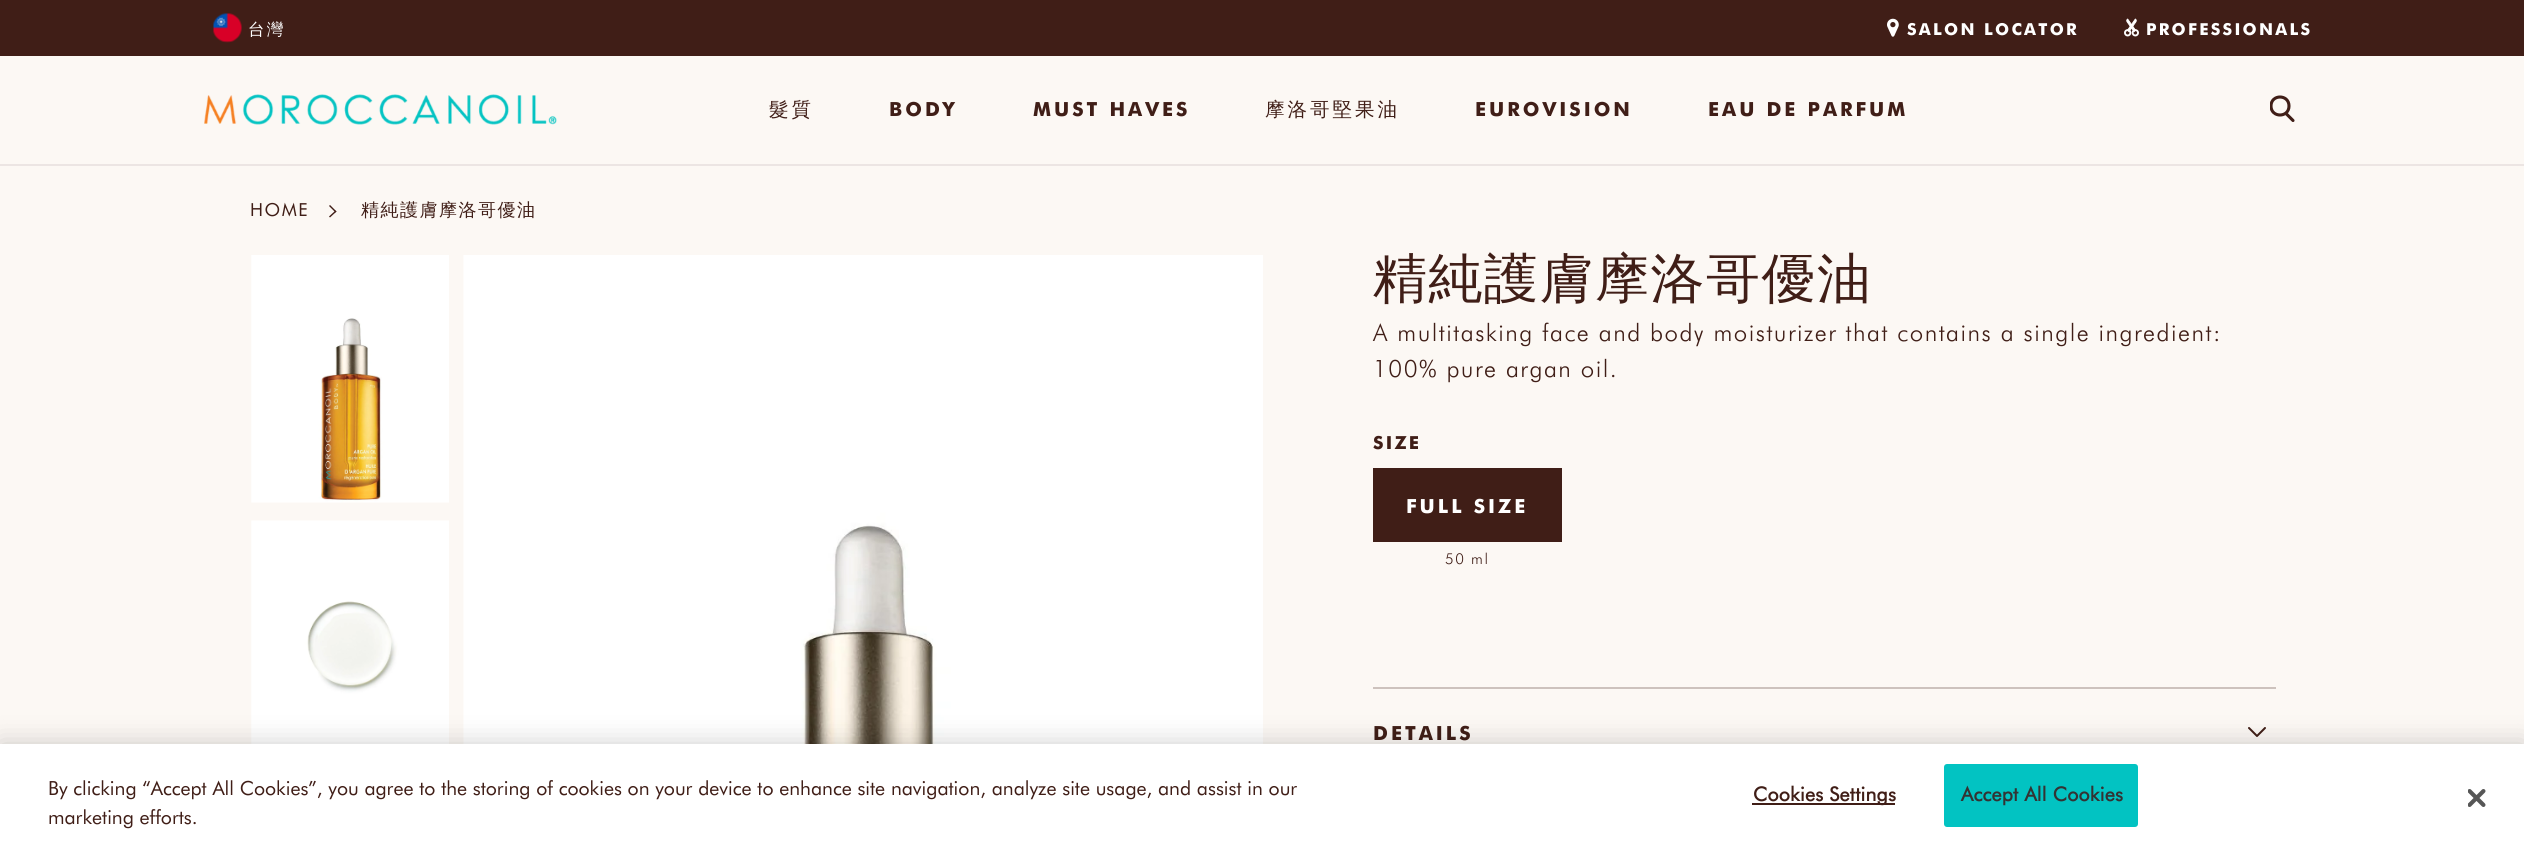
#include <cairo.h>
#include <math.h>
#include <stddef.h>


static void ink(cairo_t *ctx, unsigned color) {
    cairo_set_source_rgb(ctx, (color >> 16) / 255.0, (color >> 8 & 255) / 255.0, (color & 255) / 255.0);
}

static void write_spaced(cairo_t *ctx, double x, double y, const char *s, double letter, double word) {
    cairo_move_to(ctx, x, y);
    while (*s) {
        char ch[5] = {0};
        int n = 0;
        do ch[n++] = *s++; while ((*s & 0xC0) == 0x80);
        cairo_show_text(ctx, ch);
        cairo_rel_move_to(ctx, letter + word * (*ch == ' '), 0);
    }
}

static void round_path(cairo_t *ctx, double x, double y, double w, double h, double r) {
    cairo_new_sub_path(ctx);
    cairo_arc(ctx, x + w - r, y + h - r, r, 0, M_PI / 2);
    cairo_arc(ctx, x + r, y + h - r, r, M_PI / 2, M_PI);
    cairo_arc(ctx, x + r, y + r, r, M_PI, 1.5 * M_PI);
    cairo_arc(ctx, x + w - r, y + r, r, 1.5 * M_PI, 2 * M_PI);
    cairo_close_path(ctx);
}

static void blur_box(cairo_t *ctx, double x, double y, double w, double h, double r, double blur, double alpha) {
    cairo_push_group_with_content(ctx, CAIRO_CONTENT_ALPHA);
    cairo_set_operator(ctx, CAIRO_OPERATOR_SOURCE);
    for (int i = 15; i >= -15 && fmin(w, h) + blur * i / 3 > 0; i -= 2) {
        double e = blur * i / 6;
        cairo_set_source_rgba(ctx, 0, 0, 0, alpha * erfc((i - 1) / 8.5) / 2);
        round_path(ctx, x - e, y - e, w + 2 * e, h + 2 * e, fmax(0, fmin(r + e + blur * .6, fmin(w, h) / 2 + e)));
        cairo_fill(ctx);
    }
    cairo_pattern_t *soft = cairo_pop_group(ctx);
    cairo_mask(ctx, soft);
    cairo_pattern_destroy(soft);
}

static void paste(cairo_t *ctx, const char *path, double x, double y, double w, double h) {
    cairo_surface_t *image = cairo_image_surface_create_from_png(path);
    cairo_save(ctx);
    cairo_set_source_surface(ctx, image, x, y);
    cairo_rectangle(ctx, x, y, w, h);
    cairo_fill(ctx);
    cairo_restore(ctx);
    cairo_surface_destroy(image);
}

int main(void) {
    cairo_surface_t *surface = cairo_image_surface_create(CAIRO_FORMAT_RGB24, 2524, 858);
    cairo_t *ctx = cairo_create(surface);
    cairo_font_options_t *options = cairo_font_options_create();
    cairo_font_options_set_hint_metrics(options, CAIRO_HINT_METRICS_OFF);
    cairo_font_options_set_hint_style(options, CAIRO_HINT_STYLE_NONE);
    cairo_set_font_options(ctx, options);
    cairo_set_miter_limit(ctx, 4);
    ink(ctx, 0xFCF8F4);
    cairo_paint(ctx);
    ink(ctx, 0x401E17);
    cairo_rectangle(ctx, 0, 0, 2524, 56);
    cairo_fill(ctx);
    paste(ctx, "media/1.png", 213, 13, 29, 30);
    cairo_select_font_face(ctx, "WenQuanYi Zen Hei Medium", CAIRO_FONT_SLANT_NORMAL, CAIRO_FONT_WEIGHT_NORMAL);
    cairo_set_font_size(ctx, 16.5);
    ink(ctx, 0xFFFFFF);
    write_spaced(ctx, 248, 35, "台灣", 2.25, 0);
    paste(ctx, "media/2.png", 1887, 18, 12, 19);
    cairo_select_font_face(ctx, "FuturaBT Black", CAIRO_FONT_SLANT_NORMAL, CAIRO_FONT_WEIGHT_NORMAL);
    write_spaced(ctx, 1907, 35, "SALON LOCATOR", 2.25, 0);
    paste(ctx, "media/3.png", 2124, 18, 15, 19);
    write_spaced(ctx, 2146, 35, "PROFESSIONALS", 2.25, 0);
    ink(ctx, 0xECE5E3);
    cairo_rectangle(ctx, 0, 164, 2524, 2);
    cairo_fill(ctx);
    paste(ctx, "media/4.png", 204, 94, 353, 31);
    cairo_select_font_face(ctx, "WenQuanYi Zen Hei Medium", CAIRO_FONT_SLANT_NORMAL, CAIRO_FONT_WEIGHT_NORMAL);
    cairo_set_font_size(ctx, 19.5);
    ink(ctx, 0x401E17);
    write_spaced(ctx, 769, 116, "髮質", 3, 0);
    cairo_select_font_face(ctx, "FuturaBT Black", CAIRO_FONT_SLANT_NORMAL, CAIRO_FONT_WEIGHT_NORMAL);
    write_spaced(ctx, 889, 116, "BODY", 3, 0);
    write_spaced(ctx, 1033, 116, "MUST HAVES", 3, 0);
    cairo_select_font_face(ctx, "WenQuanYi Zen Hei Medium", CAIRO_FONT_SLANT_NORMAL, CAIRO_FONT_WEIGHT_NORMAL);
    write_spaced(ctx, 1265, 116, "摩洛哥堅果油", 3, 0);
    cairo_select_font_face(ctx, "FuturaBT Black", CAIRO_FONT_SLANT_NORMAL, CAIRO_FONT_WEIGHT_NORMAL);
    write_spaced(ctx, 1475, 116, "EUROVISION", 3, 0);
    write_spaced(ctx, 1708, 116, "EAU DE PARFUM", 3, 0);
    cairo_new_path(ctx);
    cairo_move_to(ctx, 2286.5, 114);
    cairo_line_to(ctx, 2293, 120.5);
    cairo_set_line_width(ctx, 3.1);
    cairo_set_line_cap(ctx, CAIRO_LINE_CAP_ROUND);
    cairo_stroke(ctx);
    cairo_save(ctx);
    cairo_rectangle(ctx, 2270, 86, 25, 48);
    cairo_clip(ctx);
    cairo_new_path(ctx);
    cairo_move_to(ctx, 2289, 106);
    cairo_curve_to(ctx, 2289, 118, 2271, 118, 2271, 106);
    cairo_curve_to(ctx, 2271, 94, 2289, 94, 2289, 106);
    cairo_close_path(ctx);
    cairo_stroke(ctx);
    cairo_restore(ctx);
    cairo_select_font_face(ctx, "FuturaBT", CAIRO_FONT_SLANT_NORMAL, CAIRO_FONT_WEIGHT_NORMAL);
    cairo_set_font_size(ctx, 18);
    write_spaced(ctx, 250, 216, "HOME", 1.5, 0);
    cairo_new_path(ctx);
    cairo_move_to(ctx, 330, 205);
    cairo_line_to(ctx, 336.5, 211.5);
    cairo_line_to(ctx, 335.5, 212.5);
    cairo_line_to(ctx, 329, 206);
    cairo_close_path(ctx);
    cairo_fill(ctx);
    cairo_new_path(ctx);
    cairo_move_to(ctx, 335.5, 210.5);
    cairo_line_to(ctx, 336.5, 211.5);
    cairo_line_to(ctx, 330, 217.5);
    cairo_line_to(ctx, 329, 216.5);
    cairo_close_path(ctx);
    cairo_fill(ctx);
    cairo_select_font_face(ctx, "WenQuanYi Zen Hei Medium", CAIRO_FONT_SLANT_NORMAL, CAIRO_FONT_WEIGHT_NORMAL);
    write_spaced(ctx, 361, 216, "精純護膚摩洛哥優油", 1.5, 0);
    paste(ctx, "media/5.png", 251, 255, 198, 248);
    paste(ctx, "media/6.png", 251, 520, 198, 224);
    paste(ctx, "media/7.png", 463, 255, 800, 489);
    cairo_set_font_size(ctx, 54);
    write_spaced(ctx, 1373, 297, "精純護膚摩洛哥優油", 1.5, 0);
    cairo_select_font_face(ctx, "FuturaBT Light", CAIRO_FONT_SLANT_NORMAL, CAIRO_FONT_WEIGHT_NORMAL);
    cairo_set_font_size(ctx, 24);
    write_spaced(ctx, 1373, 341, "A multitasking face and body moisturizer that contains a single ingredient:", 1.5, 0);
    write_spaced(ctx, 1373, 377, "100% pure argan oil.", 1.5, 0);
    cairo_select_font_face(ctx, "FuturaBT Black", CAIRO_FONT_SLANT_NORMAL, CAIRO_FONT_WEIGHT_NORMAL);
    cairo_set_font_size(ctx, 18);
    write_spaced(ctx, 1373, 449, "SIZE", 2.25, 0);
    cairo_rectangle(ctx, 1373, 468, 189, 74);
    cairo_fill(ctx);
    cairo_set_font_size(ctx, 19.5);
    ink(ctx, 0xFFFFFF);
    write_spaced(ctx, 1406, 513, "FULL SIZE", 3, 0);
    cairo_select_font_face(ctx, "FuturaBT Light", CAIRO_FONT_SLANT_NORMAL, CAIRO_FONT_WEIGHT_NORMAL);
    cairo_set_font_size(ctx, 15);
    ink(ctx, 0x401E17);
    write_spaced(ctx, 1445, 564, "50 ml", 1.5, 0);
    ink(ctx, 0xCDC2BD);
    cairo_rectangle(ctx, 1373, 687, 903, 2);
    cairo_fill(ctx);
    cairo_select_font_face(ctx, "FuturaBT Black", CAIRO_FONT_SLANT_NORMAL, CAIRO_FONT_WEIGHT_NORMAL);
    cairo_set_font_size(ctx, 19.5);
    ink(ctx, 0x401E17);
    write_spaced(ctx, 1373, 740, "DETAILS", 3, 0);
    paste(ctx, "media/8.png", 2248, 727, 18, 10);
    ink(ctx, 0x000000);
    blur_box(ctx, 0, 744, 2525, 114, 0, 13.5, 0.2);
    ink(ctx, 0xFFFFFF);
    cairo_rectangle(ctx, 0, 744, 2524, 114);
    cairo_fill(ctx);
    cairo_select_font_face(ctx, "FuturaBT", CAIRO_FONT_SLANT_NORMAL, CAIRO_FONT_WEIGHT_NORMAL);
    ink(ctx, 0x401E17);
    cairo_move_to(ctx, 48, 795);
    cairo_show_text(ctx, "By clicking “Accept All Cookies”, you agree to the storing of cookies on your device to enhance site navigation, analyze site usage, and assist in our");
    cairo_move_to(ctx, 48, 824);
    cairo_show_text(ctx, "marketing efforts.");
    cairo_rectangle(ctx, 1752, 803, 143, 2);
    cairo_fill(ctx);
    cairo_select_font_face(ctx, "FuturaBT", CAIRO_FONT_SLANT_NORMAL, CAIRO_FONT_WEIGHT_BOLD);
    write_spaced(ctx, 1753, 801, "Cookies Settings", 0.25, 0);
    ink(ctx, 0x02C3C2);
    round_path(ctx, 1945, 765, 192, 61, 2);
    cairo_fill_preserve(ctx);
    cairo_set_line_width(ctx, 2);
    cairo_set_line_cap(ctx, CAIRO_LINE_CAP_BUTT);
    cairo_stroke(ctx);
    ink(ctx, 0x333333);
    write_spaced(ctx, 1961, 801, "Accept All Cookies", 0.25, 0);
    paste(ctx, "media/9.png", 2468, 789, 18, 18);
    cairo_surface_write_to_png(surface, "image.png");
    cairo_font_options_destroy(options);
    cairo_destroy(ctx);
    cairo_surface_destroy(surface);
    return 0;
}
